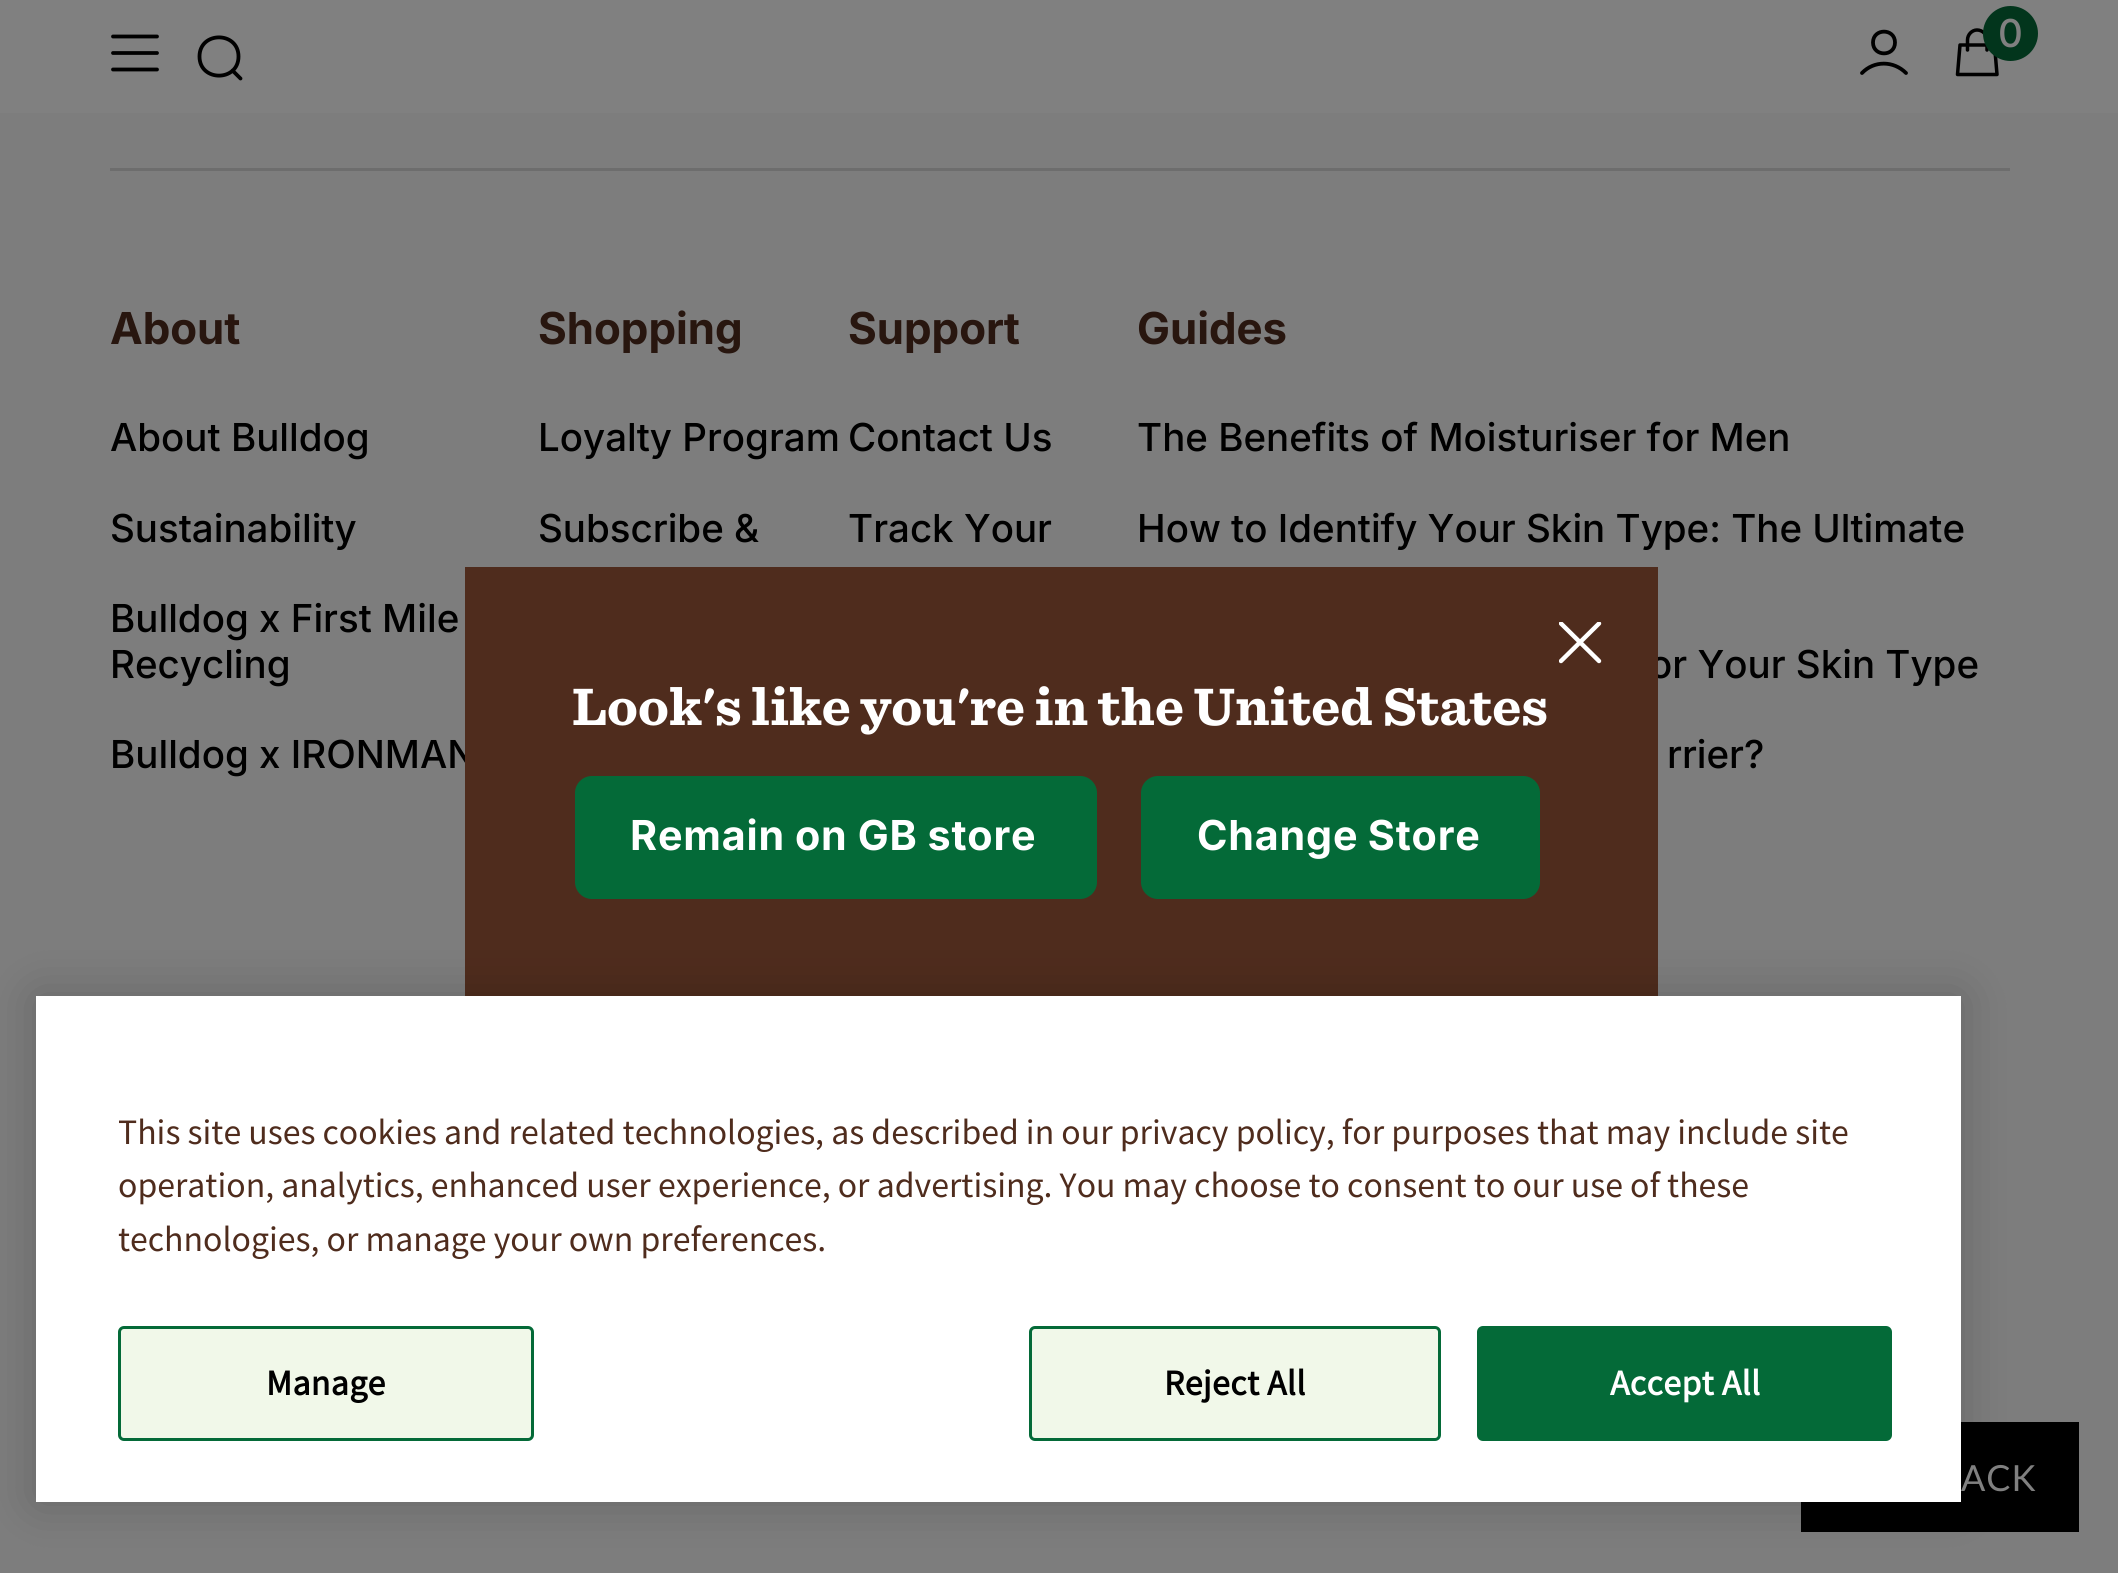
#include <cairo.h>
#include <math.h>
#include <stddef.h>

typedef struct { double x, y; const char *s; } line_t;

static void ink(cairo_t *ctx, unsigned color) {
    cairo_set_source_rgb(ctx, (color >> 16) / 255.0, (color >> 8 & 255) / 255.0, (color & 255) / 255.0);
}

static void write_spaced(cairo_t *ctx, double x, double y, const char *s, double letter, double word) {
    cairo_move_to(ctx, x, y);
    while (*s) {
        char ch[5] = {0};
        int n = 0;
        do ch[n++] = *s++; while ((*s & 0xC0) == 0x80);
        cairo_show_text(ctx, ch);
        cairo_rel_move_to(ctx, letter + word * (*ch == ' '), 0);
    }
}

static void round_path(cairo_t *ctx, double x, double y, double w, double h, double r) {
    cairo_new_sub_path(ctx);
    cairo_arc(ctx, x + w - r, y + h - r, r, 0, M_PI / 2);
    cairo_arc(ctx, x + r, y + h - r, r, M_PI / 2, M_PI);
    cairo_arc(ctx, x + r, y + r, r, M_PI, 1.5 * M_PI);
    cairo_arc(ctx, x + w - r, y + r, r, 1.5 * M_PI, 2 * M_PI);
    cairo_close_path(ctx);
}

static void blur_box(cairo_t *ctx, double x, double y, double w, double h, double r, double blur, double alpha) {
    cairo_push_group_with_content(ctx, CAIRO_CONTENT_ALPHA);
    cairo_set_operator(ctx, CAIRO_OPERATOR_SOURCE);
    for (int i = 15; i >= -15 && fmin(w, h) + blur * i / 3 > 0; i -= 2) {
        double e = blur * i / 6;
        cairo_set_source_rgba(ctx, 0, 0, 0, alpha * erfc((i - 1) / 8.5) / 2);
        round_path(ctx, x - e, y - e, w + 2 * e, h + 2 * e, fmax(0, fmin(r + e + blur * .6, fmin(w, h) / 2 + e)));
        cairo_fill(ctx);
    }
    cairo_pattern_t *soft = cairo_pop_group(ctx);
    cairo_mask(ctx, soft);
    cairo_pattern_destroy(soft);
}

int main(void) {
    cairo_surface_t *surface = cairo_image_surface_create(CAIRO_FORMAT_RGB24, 2118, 1573);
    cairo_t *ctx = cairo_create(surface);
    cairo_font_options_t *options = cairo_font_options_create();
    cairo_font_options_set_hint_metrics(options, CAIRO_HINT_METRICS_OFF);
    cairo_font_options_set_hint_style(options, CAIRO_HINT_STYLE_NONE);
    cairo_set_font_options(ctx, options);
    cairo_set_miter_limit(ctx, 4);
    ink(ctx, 0x7D7D7D);
    cairo_paint(ctx);
    ink(ctx, 0x808080);
    cairo_rectangle(ctx, 0, 0, 2118, 113);
    cairo_fill(ctx);
    cairo_new_path(ctx);
    cairo_move_to(ctx, 113, 36.5);
    cairo_line_to(ctx, 157, 36.5);
    cairo_move_to(ctx, 113, 53);
    cairo_line_to(ctx, 157, 53);
    cairo_move_to(ctx, 113, 69.5);
    cairo_line_to(ctx, 157, 69.5);
    ink(ctx, 0x000000);
    cairo_set_line_width(ctx, 3.8);
    cairo_set_line_cap(ctx, CAIRO_LINE_CAP_ROUND);
    cairo_set_line_join(ctx, CAIRO_LINE_JOIN_ROUND);
    cairo_stroke(ctx);
    cairo_new_path(ctx);
    cairo_move_to(ctx, 240.5, 78.5);
    cairo_line_to(ctx, 232.5, 70.5);
    cairo_move_to(ctx, 238.5, 56.5);
    cairo_curve_to(ctx, 238.5, 82, 199.5, 82, 199.5, 56.5);
    cairo_curve_to(ctx, 199.5, 31, 238.5, 31, 238.5, 56.5);
    cairo_close_path(ctx);
    cairo_stroke(ctx);
    cairo_new_path(ctx);
    cairo_move_to(ctx, 1862, 73);
    cairo_curve_to(ctx, 1874, 60.5, 1893.5, 60.5, 1906, 73);
    cairo_move_to(ctx, 1895, 42.5);
    cairo_curve_to(ctx, 1895, 57, 1873, 57, 1873, 42.5);
    cairo_curve_to(ctx, 1873, 28, 1895, 28, 1895, 42.5);
    cairo_close_path(ctx);
    cairo_stroke(ctx);
    cairo_new_path(ctx);
    cairo_move_to(ctx, 1987, 50);
    cairo_line_to(ctx, 1987, 40);
    cairo_curve_to(ctx, 1987, 34.5, 1982.5, 30, 1977, 30);
    cairo_curve_to(ctx, 1972, 30, 1967.5, 34.5, 1967.5, 40);
    cairo_line_to(ctx, 1967.5, 50);
    cairo_move_to(ctx, 1960, 45);
    cairo_line_to(ctx, 1994.5, 45);
    cairo_line_to(ctx, 1997, 74.5);
    cairo_line_to(ctx, 1957.5, 74.5);
    cairo_close_path(ctx);
    cairo_set_line_width(ctx, 3.5);
    cairo_stroke(ctx);
    ink(ctx, 0x02351C);
    cairo_arc(ctx, 2010.5, 33.5, 27.5, 0, 2 * M_PI);
    cairo_fill(ctx);
    cairo_select_font_face(ctx, "Inter Medium", CAIRO_FONT_SLANT_NORMAL, CAIRO_FONT_WEIGHT_NORMAL);
    cairo_set_font_size(ctx, 38.5);
    ink(ctx, 0x808080);
    cairo_move_to(ctx, 1998, 47);
    cairo_show_text(ctx, "0");
    ink(ctx, 0x6D6D6D);
    cairo_rectangle(ctx, 110, 168, 1900, 3);
    cairo_fill(ctx);
    cairo_select_font_face(ctx, "Inter", CAIRO_FONT_SLANT_NORMAL, CAIRO_FONT_WEIGHT_BOLD);
    cairo_set_font_size(ctx, 44);
    ink(ctx, 0x28160F);
    cairo_move_to(ctx, 110, 344);
    cairo_show_text(ctx, "About");
    cairo_select_font_face(ctx, "Inter Medium", CAIRO_FONT_SLANT_NORMAL, CAIRO_FONT_WEIGHT_NORMAL);
    cairo_set_font_size(ctx, 38.5);
    ink(ctx, 0x000000);
    {
        static const line_t items[] = {
            {110, 451, "About Bulldog"},
            {110, 542, "Sustainability"},
            {110, 632, "Bulldog x First Mile"},
            {110, 678, "Recycling"},
            {110, 768, "Bulldog x IRONMAN"},
        };
        for (size_t i = 0; i < sizeof items / sizeof *items; i++) {
            cairo_move_to(ctx, items[i].x, items[i].y);
            cairo_show_text(ctx, items[i].s);
        }
    }
    cairo_select_font_face(ctx, "Inter", CAIRO_FONT_SLANT_NORMAL, CAIRO_FONT_WEIGHT_BOLD);
    cairo_set_font_size(ctx, 44);
    ink(ctx, 0x28160F);
    cairo_move_to(ctx, 538, 344);
    cairo_show_text(ctx, "Shopping");
    cairo_select_font_face(ctx, "Inter Medium", CAIRO_FONT_SLANT_NORMAL, CAIRO_FONT_WEIGHT_NORMAL);
    cairo_set_font_size(ctx, 38.5);
    ink(ctx, 0x000000);
    cairo_move_to(ctx, 538, 451);
    cairo_show_text(ctx, "Loyalty Program");
    cairo_move_to(ctx, 538, 542);
    cairo_show_text(ctx, "Subscribe &");
    cairo_select_font_face(ctx, "Inter", CAIRO_FONT_SLANT_NORMAL, CAIRO_FONT_WEIGHT_BOLD);
    cairo_set_font_size(ctx, 44);
    ink(ctx, 0x28160F);
    cairo_move_to(ctx, 848, 344);
    cairo_show_text(ctx, "Support");
    cairo_select_font_face(ctx, "Inter Medium", CAIRO_FONT_SLANT_NORMAL, CAIRO_FONT_WEIGHT_NORMAL);
    cairo_set_font_size(ctx, 38.5);
    ink(ctx, 0x000000);
    cairo_move_to(ctx, 848, 451);
    cairo_show_text(ctx, "Contact Us");
    cairo_move_to(ctx, 848, 542);
    cairo_show_text(ctx, "Track Your");
    cairo_select_font_face(ctx, "Inter", CAIRO_FONT_SLANT_NORMAL, CAIRO_FONT_WEIGHT_BOLD);
    cairo_set_font_size(ctx, 44);
    ink(ctx, 0x28160F);
    cairo_move_to(ctx, 1137, 344);
    cairo_show_text(ctx, "Guides");
    cairo_select_font_face(ctx, "Inter Medium", CAIRO_FONT_SLANT_NORMAL, CAIRO_FONT_WEIGHT_NORMAL);
    cairo_set_font_size(ctx, 38.5);
    ink(ctx, 0x000000);
    {
        static const line_t items[] = {
            {1137, 451, "The Benefits of Moisturiser for Men"},
            {1137, 542, "How to Identify Your Skin Type: The Ultimate"},
            {1649, 678, "or Your Skin Type"},
            {1667, 768, "rrier?"},
        };
        for (size_t i = 0; i < sizeof items / sizeof *items; i++) {
            cairo_move_to(ctx, items[i].x, items[i].y);
            cairo_show_text(ctx, items[i].s);
        }
    }
    ink(ctx, 0x4F2C1D);
    cairo_rectangle(ctx, 465, 567, 1193, 429);
    cairo_fill(ctx);
    cairo_save(ctx);
    cairo_rectangle(ctx, 1559, 622, 44, 44);
    cairo_clip(ctx);
    cairo_new_path(ctx);
    cairo_move_to(ctx, 1561, 661);
    cairo_line_to(ctx, 1599, 623.5);
    cairo_move_to(ctx, 1561, 623.5);
    cairo_line_to(ctx, 1599, 661);
    ink(ctx, 0xFFFFFF);
    cairo_set_line_width(ctx, 4.4);
    cairo_stroke(ctx);
    cairo_restore(ctx);
    cairo_select_font_face(ctx, "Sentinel", CAIRO_FONT_SLANT_NORMAL, CAIRO_FONT_WEIGHT_BOLD);
    cairo_set_font_size(ctx, 55);
    ink(ctx, 0xFFFFFF);
    cairo_move_to(ctx, 572, 725);
    cairo_show_text(ctx, "Look's like you're in the United States");
    ink(ctx, 0x046A38);
    round_path(ctx, 575, 776, 522, 123, 17);
    cairo_fill(ctx);
    cairo_select_font_face(ctx, "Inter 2", CAIRO_FONT_SLANT_NORMAL, CAIRO_FONT_WEIGHT_BOLD);
    cairo_set_font_size(ctx, 41.25);
    ink(ctx, 0xFFFFFF);
    write_spaced(ctx, 630, 850, "Remain on GB store", 0.8, -0.5);
    ink(ctx, 0x046A38);
    round_path(ctx, 1141, 776, 399, 123, 17);
    cairo_fill(ctx);
    ink(ctx, 0xFFFFFF);
    write_spaced(ctx, 1197, 850, "Change Store", 0.8, -1);
    ink(ctx, 0x000000);
    cairo_rectangle(ctx, 1801, 1422, 278, 110);
    cairo_fill(ctx);
    ink(ctx, 0x000000);
    blur_box(ctx, 36, 996, 1925, 506, 0, 25, 0.2);
    ink(ctx, 0xFFFFFF);
    cairo_rectangle(ctx, 36, 996, 1925, 506);
    cairo_fill(ctx);
    cairo_select_font_face(ctx, "Source Sans Pro", CAIRO_FONT_SLANT_NORMAL, CAIRO_FONT_WEIGHT_NORMAL);
    cairo_set_font_size(ctx, 35.75);
    ink(ctx, 0x4F2C1D);
    {
        static const line_t items[] = {
            {118, 1144, "This site uses cookies and related technologies, as described in our privacy policy, for purposes that may include site"},
            {118, 1197, "operation, analytics, enhanced user experience, or advertising. You may choose to consent to our use of these"},
            {118, 1251, "technologies, or manage your own preferences."},
        };
        for (size_t i = 0; i < sizeof items / sizeof *items; i++) {
            cairo_move_to(ctx, items[i].x, items[i].y);
            cairo_show_text(ctx, items[i].s);
        }
    }
    ink(ctx, 0xF1F8E9);
    round_path(ctx, 119.5, 1327.5, 413, 112, 4.5);
    cairo_fill_preserve(ctx);
    ink(ctx, 0x046A38);
    cairo_set_line_width(ctx, 3);
    cairo_set_line_cap(ctx, CAIRO_LINE_CAP_BUTT);
    cairo_set_line_join(ctx, CAIRO_LINE_JOIN_MITER);
    cairo_stroke(ctx);
    cairo_select_font_face(ctx, "Source Sans Pro", CAIRO_FONT_SLANT_NORMAL, CAIRO_FONT_WEIGHT_BOLD);
    ink(ctx, 0x000000);
    write_spaced(ctx, 266, 1395, "Manage", 0.4, 0);
    ink(ctx, 0xF1F8E9);
    round_path(ctx, 1030.5, 1327.5, 409, 112, 4.5);
    cairo_fill_preserve(ctx);
    ink(ctx, 0x046A38);
    cairo_stroke(ctx);
    ink(ctx, 0x000000);
    write_spaced(ctx, 1164, 1395, "Reject All", 0.4, 0);
    ink(ctx, 0x046A38);
    round_path(ctx, 1478.5, 1327.5, 412, 112, 4.5);
    cairo_fill_preserve(ctx);
    cairo_stroke(ctx);
    ink(ctx, 0xFFFFFF);
    write_spaced(ctx, 1610, 1395, "Accept All", 0.4, 0);
    cairo_select_font_face(ctx, "Lato", CAIRO_FONT_SLANT_NORMAL, CAIRO_FONT_WEIGHT_NORMAL);
    cairo_set_font_size(ctx, 36);
    ink(ctx, 0x808080);
    write_spaced(ctx, 1961, 1491, "ACK", 1, 0);
    cairo_surface_write_to_png(surface, "image.png");
    cairo_font_options_destroy(options);
    cairo_destroy(ctx);
    cairo_surface_destroy(surface);
    return 0;
}
